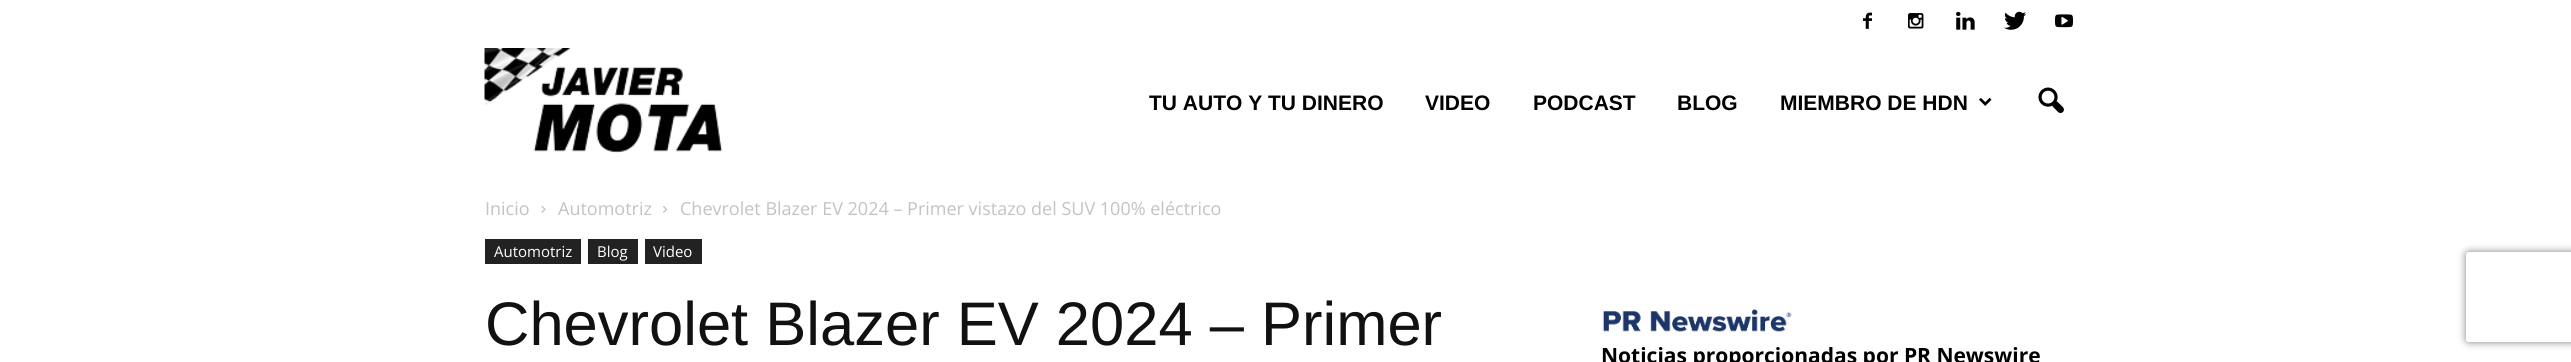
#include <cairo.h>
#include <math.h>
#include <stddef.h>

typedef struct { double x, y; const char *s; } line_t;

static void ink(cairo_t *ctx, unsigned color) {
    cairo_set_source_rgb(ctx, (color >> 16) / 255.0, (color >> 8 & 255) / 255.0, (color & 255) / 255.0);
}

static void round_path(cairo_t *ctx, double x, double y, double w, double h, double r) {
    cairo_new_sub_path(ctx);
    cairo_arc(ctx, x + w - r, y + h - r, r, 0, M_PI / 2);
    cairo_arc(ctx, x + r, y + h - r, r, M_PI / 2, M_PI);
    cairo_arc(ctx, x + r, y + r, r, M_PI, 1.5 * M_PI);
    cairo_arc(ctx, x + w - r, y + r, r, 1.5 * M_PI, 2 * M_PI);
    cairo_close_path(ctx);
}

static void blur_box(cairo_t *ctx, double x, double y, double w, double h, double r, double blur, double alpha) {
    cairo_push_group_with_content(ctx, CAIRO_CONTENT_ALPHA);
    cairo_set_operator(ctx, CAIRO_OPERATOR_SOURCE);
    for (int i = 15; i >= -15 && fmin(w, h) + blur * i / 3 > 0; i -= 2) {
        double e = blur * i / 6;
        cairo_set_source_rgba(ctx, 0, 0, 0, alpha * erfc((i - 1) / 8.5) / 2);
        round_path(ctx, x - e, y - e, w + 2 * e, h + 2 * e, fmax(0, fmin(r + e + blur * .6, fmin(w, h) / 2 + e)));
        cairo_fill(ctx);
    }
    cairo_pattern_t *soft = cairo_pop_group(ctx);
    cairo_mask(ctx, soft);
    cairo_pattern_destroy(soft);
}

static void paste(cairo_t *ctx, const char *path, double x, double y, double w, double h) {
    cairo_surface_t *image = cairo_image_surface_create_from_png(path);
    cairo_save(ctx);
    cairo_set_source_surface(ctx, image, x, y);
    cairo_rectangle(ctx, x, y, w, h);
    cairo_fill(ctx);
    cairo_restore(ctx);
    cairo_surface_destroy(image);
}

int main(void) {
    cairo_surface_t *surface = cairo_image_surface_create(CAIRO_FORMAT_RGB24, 2571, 362);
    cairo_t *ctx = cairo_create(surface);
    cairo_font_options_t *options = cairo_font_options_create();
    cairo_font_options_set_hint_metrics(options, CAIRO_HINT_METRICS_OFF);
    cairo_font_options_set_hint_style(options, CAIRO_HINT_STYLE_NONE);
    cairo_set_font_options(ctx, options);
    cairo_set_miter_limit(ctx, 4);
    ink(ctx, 0xFFFFFF);
    cairo_paint(ctx);
    paste(ctx, "media/1.png", 1863, 12, 9, 17);
    paste(ctx, "media/2.png", 1908, 13, 16, 16);
    paste(ctx, "media/3.png", 1956, 11, 19, 19);
    paste(ctx, "media/4.png", 2004, 11, 22, 19);
    paste(ctx, "media/5.png", 2055, 14, 18, 14);
    paste(ctx, "media/6.png", 484, 48, 239, 105);
    cairo_select_font_face(ctx, "Liberation Sans", CAIRO_FONT_SLANT_NORMAL, CAIRO_FONT_WEIGHT_BOLD);
    cairo_set_font_size(ctx, 21);
    ink(ctx, 0x000000);
    {
        static const line_t items[] = {
            {1149, 110, "TU AUTO Y TU DINERO"},
            {1425, 110, "VIDEO"},
            {1533, 110, "PODCAST"},
            {1677, 110, "BLOG"},
            {1780, 110, "MIEMBRO DE HDN"},
        };
        for (size_t i = 0; i < sizeof items / sizeof *items; i++) {
            cairo_move_to(ctx, items[i].x, items[i].y);
            cairo_show_text(ctx, items[i].s);
        }
    }
    paste(ctx, "media/7.png", 1979, 98, 13, 8);
    paste(ctx, "media/8.png", 2038, 87, 26, 26);
    cairo_select_font_face(ctx, "Open Sans", CAIRO_FONT_SLANT_NORMAL, CAIRO_FONT_WEIGHT_NORMAL);
    cairo_set_font_size(ctx, 18);
    ink(ctx, 0xC3C3C3);
    cairo_move_to(ctx, 485, 215);
    cairo_show_text(ctx, "Inicio");
    paste(ctx, "media/9.png", 541, 206, 5, 7);
    cairo_move_to(ctx, 558, 215);
    cairo_show_text(ctx, "Automotriz");
    paste(ctx, "media/10.png", 663, 206, 4, 7);
    cairo_move_to(ctx, 680, 215);
    cairo_show_text(ctx, "Chevrolet Blazer EV 2024 – Primer vistazo del SUV 100% eléctrico");
    ink(ctx, 0x222222);
    cairo_rectangle(ctx, 485, 239, 96, 25);
    cairo_fill(ctx);
    cairo_set_font_size(ctx, 15);
    ink(ctx, 0xFFFFFF);
    cairo_move_to(ctx, 494, 257);
    cairo_show_text(ctx, "Automotriz");
    ink(ctx, 0x222222);
    cairo_rectangle(ctx, 588, 239, 50, 25);
    cairo_fill(ctx);
    ink(ctx, 0xFFFFFF);
    cairo_move_to(ctx, 597, 257);
    cairo_show_text(ctx, "Blog");
    ink(ctx, 0x222222);
    cairo_rectangle(ctx, 645, 239, 57, 25);
    cairo_fill(ctx);
    ink(ctx, 0xFFFFFF);
    cairo_move_to(ctx, 653, 257);
    cairo_show_text(ctx, "Video");
    cairo_select_font_face(ctx, "Liberation Sans", CAIRO_FONT_SLANT_NORMAL, CAIRO_FONT_WEIGHT_NORMAL);
    cairo_set_font_size(ctx, 61.5);
    ink(ctx, 0x111111);
    cairo_move_to(ctx, 485, 345);
    cairo_show_text(ctx, "Chevrolet Blazer EV 2024 – Primer");
    paste(ctx, "media/11.png", 1603, 309, 189, 23);
    cairo_select_font_face(ctx, "Open Sans", CAIRO_FONT_SLANT_NORMAL, CAIRO_FONT_WEIGHT_BOLD);
    cairo_set_font_size(ctx, 21);
    ink(ctx, 0x000000);
    cairo_move_to(ctx, 1601, 363);
    cairo_show_text(ctx, "Noticias proporcionadas por PR Newswire");
    cairo_save(ctx);
    cairo_set_fill_rule(ctx, CAIRO_FILL_RULE_EVEN_ODD);
    cairo_new_path(ctx);
    cairo_move_to(ctx, 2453, 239);
    cairo_line_to(ctx, 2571, 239);
    cairo_line_to(ctx, 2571, 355);
    cairo_line_to(ctx, 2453, 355);
    cairo_close_path(ctx);
    cairo_move_to(ctx, 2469, 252);
    cairo_line_to(ctx, 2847, 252);
    cairo_curve_to(ctx, 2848.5, 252, 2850, 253.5, 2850, 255);
    cairo_line_to(ctx, 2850, 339);
    cairo_curve_to(ctx, 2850, 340.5, 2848.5, 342, 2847, 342);
    cairo_line_to(ctx, 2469, 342);
    cairo_curve_to(ctx, 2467.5, 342, 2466, 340.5, 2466, 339);
    cairo_line_to(ctx, 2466, 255);
    cairo_curve_to(ctx, 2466, 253.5, 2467.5, 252, 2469, 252);
    cairo_close_path(ctx);
    cairo_clip(ctx);
    ink(ctx, 0x808080);
    blur_box(ctx, 2466, 252, 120, 90, 3, 4, 1);
    cairo_restore(ctx);
    cairo_surface_write_to_png(surface, "image.png");
    cairo_font_options_destroy(options);
    cairo_destroy(ctx);
    cairo_surface_destroy(surface);
    return 0;
}
